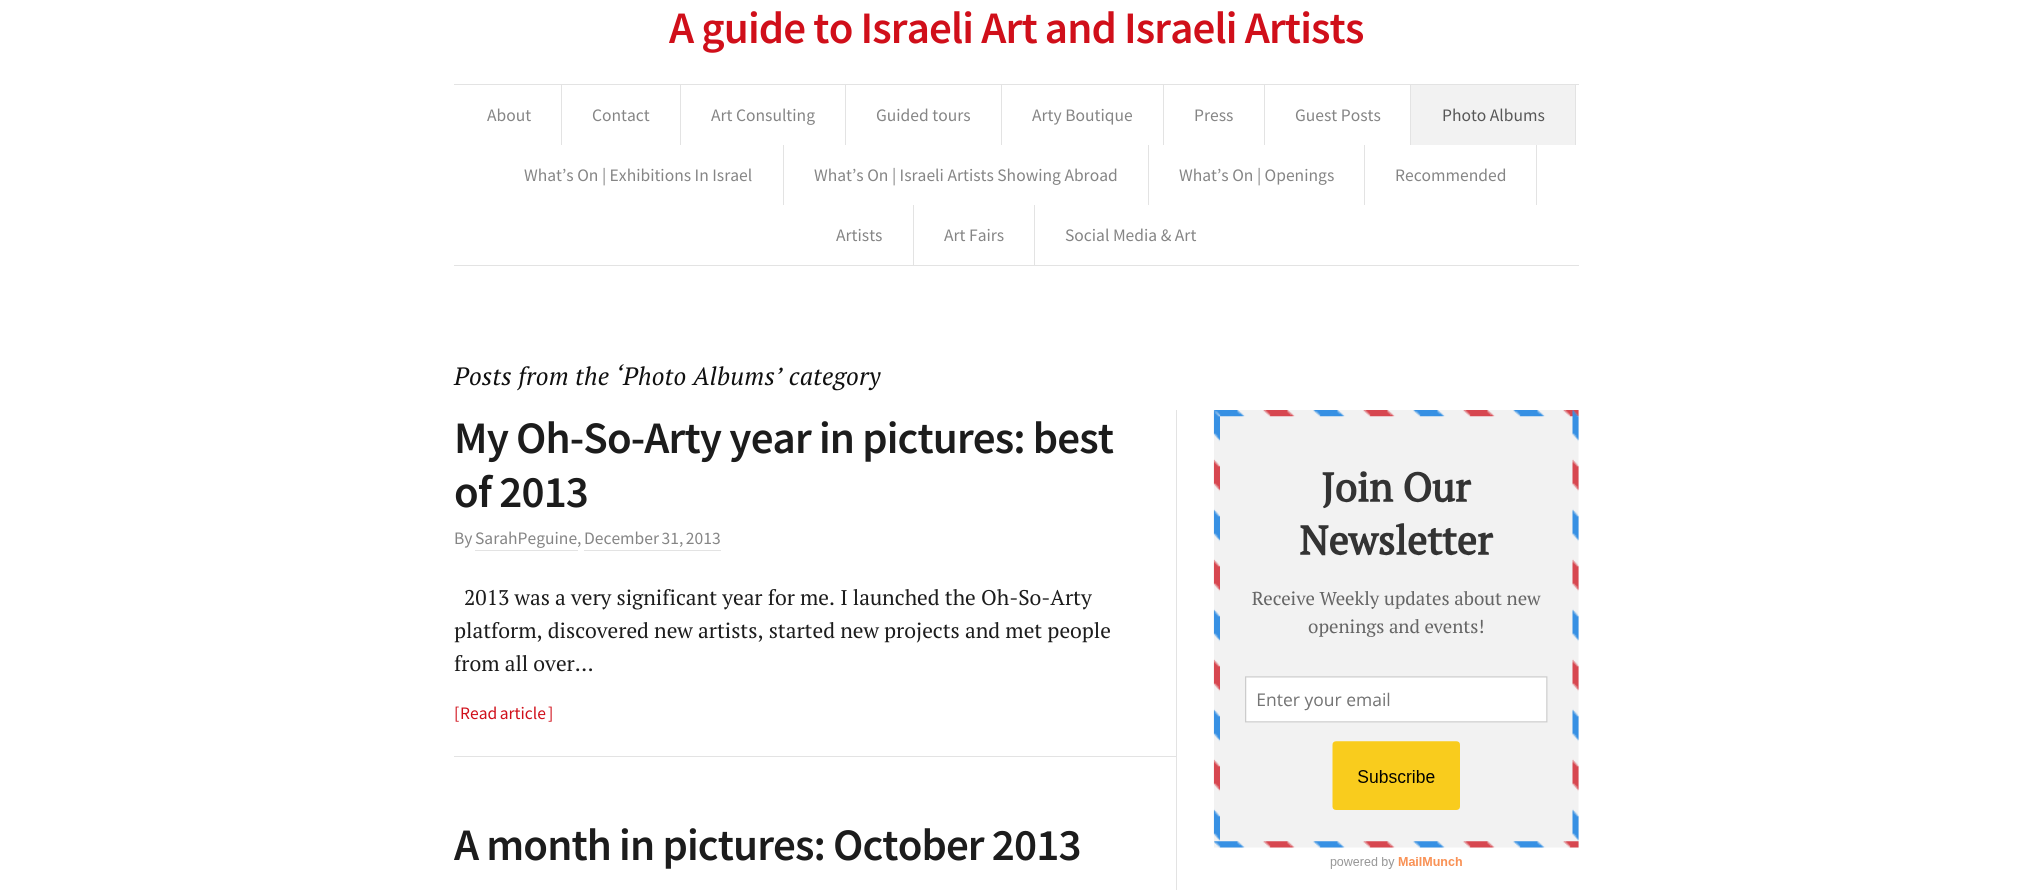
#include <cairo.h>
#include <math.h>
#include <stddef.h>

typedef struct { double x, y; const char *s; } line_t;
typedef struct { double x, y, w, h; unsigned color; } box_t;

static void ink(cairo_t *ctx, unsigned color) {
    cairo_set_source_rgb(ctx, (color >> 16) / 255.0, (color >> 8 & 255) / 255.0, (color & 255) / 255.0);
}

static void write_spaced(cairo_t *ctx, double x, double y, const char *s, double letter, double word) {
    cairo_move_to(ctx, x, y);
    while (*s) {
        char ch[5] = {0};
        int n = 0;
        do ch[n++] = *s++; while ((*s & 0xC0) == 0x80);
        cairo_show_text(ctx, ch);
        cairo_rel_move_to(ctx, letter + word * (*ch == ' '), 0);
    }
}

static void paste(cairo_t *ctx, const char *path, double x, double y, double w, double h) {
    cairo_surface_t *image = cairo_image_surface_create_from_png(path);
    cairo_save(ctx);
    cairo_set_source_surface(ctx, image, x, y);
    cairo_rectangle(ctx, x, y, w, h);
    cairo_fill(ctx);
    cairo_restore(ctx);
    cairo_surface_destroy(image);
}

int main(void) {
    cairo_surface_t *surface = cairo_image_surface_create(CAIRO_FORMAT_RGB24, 2032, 890);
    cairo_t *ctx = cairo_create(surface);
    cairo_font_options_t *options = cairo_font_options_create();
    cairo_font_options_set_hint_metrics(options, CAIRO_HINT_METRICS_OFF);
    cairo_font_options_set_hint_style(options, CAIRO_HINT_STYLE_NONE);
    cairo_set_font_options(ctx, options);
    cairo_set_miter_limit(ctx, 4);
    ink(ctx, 0xFFFFFF);
    cairo_paint(ctx);
    cairo_select_font_face(ctx, "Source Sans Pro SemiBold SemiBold", CAIRO_FONT_SLANT_NORMAL, CAIRO_FONT_WEIGHT_NORMAL);
    cairo_set_font_size(ctx, 45);
    ink(ctx, 0xD00F1A);
    write_spaced(ctx, 669, 43, "A guide to Israeli Art and Israeli Artists", -0.9, 0);
    {
        static const box_t items[] = {
            {454, 84, 1125, 1, 0xE3E3E3},
            {454, 265, 1125, 1, 0xE3E3E3},
            {561, 85, 1, 60, 0xE3E3E3},
        };
        for (size_t i = 0; i < sizeof items / sizeof *items; i++) {
            ink(ctx, items[i].color);
            cairo_rectangle(ctx, items[i].x, items[i].y, items[i].w, items[i].h);
            cairo_fill(ctx);
        }
    }
    cairo_select_font_face(ctx, "Source Sans Pro", CAIRO_FONT_SLANT_NORMAL, CAIRO_FONT_WEIGHT_NORMAL);
    cairo_set_font_size(ctx, 17.5);
    ink(ctx, 0x858585);
    cairo_move_to(ctx, 487, 121);
    cairo_show_text(ctx, "About");
    ink(ctx, 0xE3E3E3);
    cairo_rectangle(ctx, 680, 85, 1, 60);
    cairo_fill(ctx);
    ink(ctx, 0x858585);
    cairo_move_to(ctx, 592, 121);
    cairo_show_text(ctx, "Contact");
    ink(ctx, 0xE3E3E3);
    cairo_rectangle(ctx, 845, 85, 1, 60);
    cairo_fill(ctx);
    ink(ctx, 0x858585);
    cairo_move_to(ctx, 711, 121);
    cairo_show_text(ctx, "Art Consulting");
    ink(ctx, 0xE3E3E3);
    cairo_rectangle(ctx, 1001, 85, 1, 60);
    cairo_fill(ctx);
    ink(ctx, 0x858585);
    cairo_move_to(ctx, 876, 121);
    cairo_show_text(ctx, "Guided tours");
    ink(ctx, 0xE3E3E3);
    cairo_rectangle(ctx, 1163, 85, 1, 60);
    cairo_fill(ctx);
    ink(ctx, 0x858585);
    cairo_move_to(ctx, 1032, 121);
    cairo_show_text(ctx, "Arty Boutique");
    ink(ctx, 0xE3E3E3);
    cairo_rectangle(ctx, 1264, 85, 1, 60);
    cairo_fill(ctx);
    ink(ctx, 0x858585);
    cairo_move_to(ctx, 1194, 121);
    cairo_show_text(ctx, "Press");
    ink(ctx, 0xE3E3E3);
    cairo_rectangle(ctx, 1410, 85, 1, 60);
    cairo_fill(ctx);
    ink(ctx, 0x858585);
    cairo_move_to(ctx, 1295, 121);
    cairo_show_text(ctx, "Guest Posts");
    ink(ctx, 0xF2F2F2);
    cairo_rectangle(ctx, 1411, 85, 164, 60);
    cairo_fill(ctx);
    ink(ctx, 0xE3E3E3);
    cairo_rectangle(ctx, 1575, 85, 1, 60);
    cairo_fill(ctx);
    ink(ctx, 0x575757);
    cairo_move_to(ctx, 1442, 121);
    cairo_show_text(ctx, "Photo Albums");
    ink(ctx, 0xE3E3E3);
    cairo_rectangle(ctx, 783, 145, 1, 60);
    cairo_fill(ctx);
    ink(ctx, 0x858585);
    cairo_move_to(ctx, 524, 181);
    cairo_show_text(ctx, "What’s On | Exhibitions In Israel");
    ink(ctx, 0xE3E3E3);
    cairo_rectangle(ctx, 1148, 145, 1, 60);
    cairo_fill(ctx);
    ink(ctx, 0x858585);
    cairo_move_to(ctx, 814, 181);
    cairo_show_text(ctx, "What’s On | Israeli Artists Showing Abroad");
    ink(ctx, 0xE3E3E3);
    cairo_rectangle(ctx, 1364, 145, 1, 60);
    cairo_fill(ctx);
    ink(ctx, 0x858585);
    cairo_move_to(ctx, 1179, 181);
    cairo_show_text(ctx, "What’s On | Openings");
    ink(ctx, 0xE3E3E3);
    cairo_rectangle(ctx, 1536, 145, 1, 60);
    cairo_fill(ctx);
    ink(ctx, 0x858585);
    cairo_move_to(ctx, 1395, 181);
    cairo_show_text(ctx, "Recommended");
    ink(ctx, 0xE3E3E3);
    cairo_rectangle(ctx, 913, 205, 1, 60);
    cairo_fill(ctx);
    ink(ctx, 0x858585);
    cairo_move_to(ctx, 836, 241);
    cairo_show_text(ctx, "Artists");
    ink(ctx, 0xE3E3E3);
    cairo_rectangle(ctx, 1034, 205, 1, 60);
    cairo_fill(ctx);
    ink(ctx, 0x858585);
    cairo_move_to(ctx, 944, 241);
    cairo_show_text(ctx, "Art Fairs");
    cairo_move_to(ctx, 1065, 241);
    cairo_show_text(ctx, "Social Media & Art");
    cairo_select_font_face(ctx, "PT Serif", CAIRO_FONT_SLANT_ITALIC, CAIRO_FONT_WEIGHT_NORMAL);
    cairo_set_font_size(ctx, 25);
    ink(ctx, 0x101010);
    write_spaced(ctx, 454, 385, "Posts from the ‘Photo Albums’ category", 0.25, 0);
    ink(ctx, 0xE3E3E3);
    cairo_rectangle(ctx, 1176, 410, 1, 480);
    cairo_fill(ctx);
    cairo_rectangle(ctx, 454, 756, 722, 1);
    cairo_fill(ctx);
    cairo_select_font_face(ctx, "Source Sans Pro SemiBold SemiBold", CAIRO_FONT_SLANT_NORMAL, CAIRO_FONT_WEIGHT_NORMAL);
    cairo_set_font_size(ctx, 45);
    ink(ctx, 0x1C1C1C);
    write_spaced(ctx, 454, 453, "My Oh-So-Arty year in pictures: best", -0.9, 0);
    write_spaced(ctx, 454, 507, "of 2013", -0.9, 0);
    cairo_select_font_face(ctx, "Source Sans Pro", CAIRO_FONT_SLANT_NORMAL, CAIRO_FONT_WEIGHT_NORMAL);
    cairo_set_font_size(ctx, 17.5);
    ink(ctx, 0x858585);
    cairo_move_to(ctx, 454, 544);
    cairo_show_text(ctx, "By");
    cairo_move_to(ctx, 475, 544);
    cairo_show_text(ctx, "SarahPeguine,");
    ink(ctx, 0xE3E3E3);
    cairo_rectangle(ctx, 475, 550, 103, 1);
    cairo_fill(ctx);
    ink(ctx, 0x858585);
    write_spaced(ctx, 584, 544, "December 31, 2013", 0, -1);
    ink(ctx, 0xE3E3E3);
    cairo_rectangle(ctx, 584, 550, 137, 1);
    cairo_fill(ctx);
    cairo_select_font_face(ctx, "PT Serif", CAIRO_FONT_SLANT_NORMAL, CAIRO_FONT_WEIGHT_NORMAL);
    cairo_set_font_size(ctx, 21.25);
    ink(ctx, 0x1C1C1C);
    {
        static const line_t items[] = {
            {464, 605, "2013 was a very significant year for me. I launched the Oh-So-Arty"},
            {454, 638, "platform, discovered new artists, started new projects and met people"},
            {454, 671, "from all over…"},
        };
        for (size_t i = 0; i < sizeof items / sizeof *items; i++) {
            cairo_move_to(ctx, items[i].x, items[i].y);
            cairo_show_text(ctx, items[i].s);
        }
    }
    cairo_select_font_face(ctx, "Source Sans Pro", CAIRO_FONT_SLANT_NORMAL, CAIRO_FONT_WEIGHT_NORMAL);
    cairo_set_font_size(ctx, 17.5);
    ink(ctx, 0xD00F1A);
    cairo_move_to(ctx, 454, 719);
    cairo_show_text(ctx, "[");
    write_spaced(ctx, 460, 719, "Read article", 0, -1);
    cairo_move_to(ctx, 548, 719);
    cairo_show_text(ctx, "]");
    cairo_select_font_face(ctx, "Source Sans Pro SemiBold SemiBold", CAIRO_FONT_SLANT_NORMAL, CAIRO_FONT_WEIGHT_NORMAL);
    cairo_set_font_size(ctx, 45);
    ink(ctx, 0x1C1C1C);
    write_spaced(ctx, 454, 860, "A month in pictures: October 2013", -0.9, 0);
    paste(ctx, "media/1.png", 1213, 410, 366, 459);
    cairo_surface_write_to_png(surface, "image.png");
    cairo_font_options_destroy(options);
    cairo_destroy(ctx);
    cairo_surface_destroy(surface);
    return 0;
}
